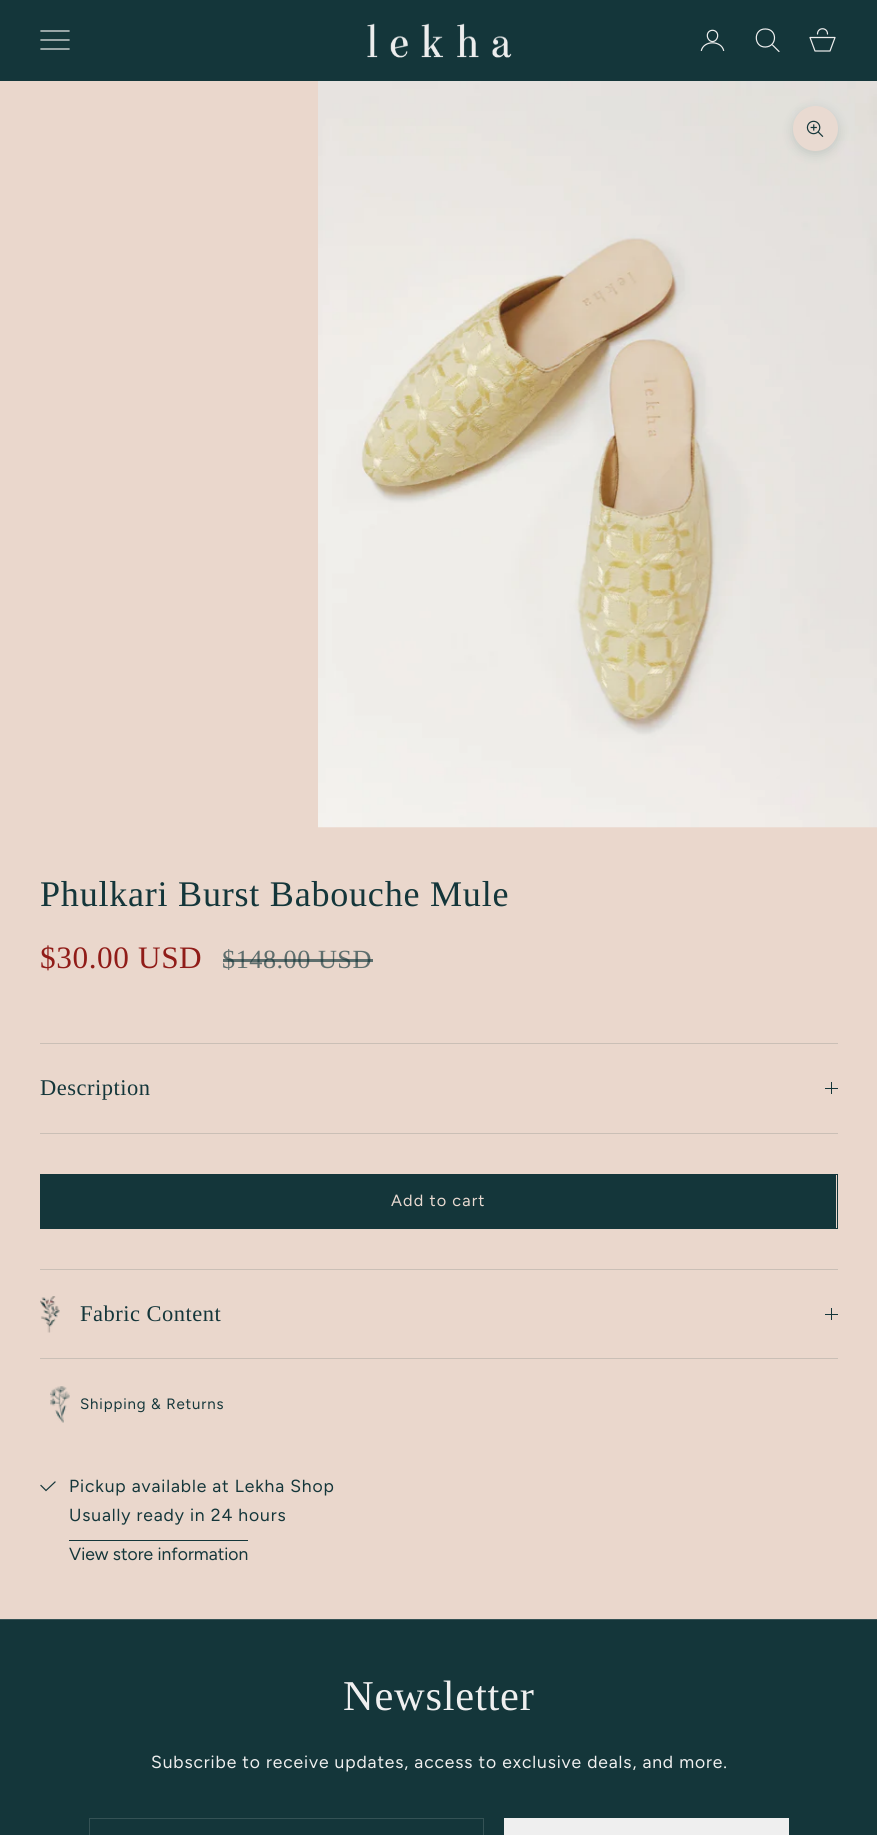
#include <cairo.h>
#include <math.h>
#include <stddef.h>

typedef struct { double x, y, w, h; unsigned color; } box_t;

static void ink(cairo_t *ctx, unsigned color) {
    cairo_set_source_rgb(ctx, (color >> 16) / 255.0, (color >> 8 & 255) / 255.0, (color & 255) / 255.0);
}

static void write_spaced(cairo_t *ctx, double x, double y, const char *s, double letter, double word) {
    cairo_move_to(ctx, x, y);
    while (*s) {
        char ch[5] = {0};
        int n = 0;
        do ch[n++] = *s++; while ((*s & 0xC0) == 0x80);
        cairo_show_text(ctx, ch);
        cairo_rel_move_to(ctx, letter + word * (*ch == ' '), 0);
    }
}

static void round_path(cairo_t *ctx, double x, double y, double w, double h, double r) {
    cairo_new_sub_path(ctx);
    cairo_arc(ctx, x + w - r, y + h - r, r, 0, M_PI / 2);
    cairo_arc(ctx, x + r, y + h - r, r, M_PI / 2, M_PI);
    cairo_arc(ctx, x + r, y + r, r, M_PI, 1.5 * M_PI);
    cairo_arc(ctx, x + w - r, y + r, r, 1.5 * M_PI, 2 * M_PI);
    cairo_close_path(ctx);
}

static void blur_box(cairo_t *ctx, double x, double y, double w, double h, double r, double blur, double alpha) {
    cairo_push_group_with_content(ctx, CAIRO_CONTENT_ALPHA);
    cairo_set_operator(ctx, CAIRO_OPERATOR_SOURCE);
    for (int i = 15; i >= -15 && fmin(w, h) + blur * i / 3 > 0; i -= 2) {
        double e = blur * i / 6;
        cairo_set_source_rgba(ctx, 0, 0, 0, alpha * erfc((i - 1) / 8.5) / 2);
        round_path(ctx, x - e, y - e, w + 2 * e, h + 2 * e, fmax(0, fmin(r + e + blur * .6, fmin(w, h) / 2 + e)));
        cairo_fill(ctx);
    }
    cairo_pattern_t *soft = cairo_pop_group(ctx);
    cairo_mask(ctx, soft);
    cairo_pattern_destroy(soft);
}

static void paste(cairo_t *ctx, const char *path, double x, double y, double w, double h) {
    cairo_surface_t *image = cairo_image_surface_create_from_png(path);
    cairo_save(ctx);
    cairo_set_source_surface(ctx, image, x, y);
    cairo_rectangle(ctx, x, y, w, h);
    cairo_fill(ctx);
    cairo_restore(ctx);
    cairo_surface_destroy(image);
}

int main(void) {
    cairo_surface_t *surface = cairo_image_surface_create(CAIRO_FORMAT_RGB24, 877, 1835);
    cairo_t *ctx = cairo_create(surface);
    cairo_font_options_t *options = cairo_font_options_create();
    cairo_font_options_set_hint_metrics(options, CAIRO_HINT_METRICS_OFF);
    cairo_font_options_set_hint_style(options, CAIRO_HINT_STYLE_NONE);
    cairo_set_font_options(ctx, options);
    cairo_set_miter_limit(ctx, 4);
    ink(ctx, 0xEAD7CC);
    cairo_paint(ctx);
    ink(ctx, 0x14363A);
    cairo_rectangle(ctx, 0, 0, 877, 81);
    cairo_fill(ctx);
    cairo_new_path(ctx);
    cairo_move_to(ctx, 41, 49);
    cairo_line_to(ctx, 69, 49);
    cairo_move_to(ctx, 41, 40);
    cairo_line_to(ctx, 69, 40);
    cairo_move_to(ctx, 41, 31);
    cairo_line_to(ctx, 69, 31);
    ink(ctx, 0xEFEFEF);
    cairo_set_line_width(ctx, 1.2);
    cairo_set_line_cap(ctx, CAIRO_LINE_CAP_SQUARE);
    cairo_stroke(ctx);
    paste(ctx, "media/1.png", 367, 23, 145, 35);
    paste(ctx, "media/2.png", 700, 29, 25, 22);
    cairo_new_path(ctx);
    cairo_move_to(ctx, 765.5, 29);
    cairo_curve_to(ctx, 753, 28.5, 753.5, 47.5, 765.5, 47);
    cairo_curve_to(ctx, 777.5, 46.5, 777.5, 29, 765.5, 29);
    cairo_close_path(ctx);
    cairo_set_line_cap(ctx, CAIRO_LINE_CAP_BUTT);
    cairo_stroke(ctx);
    cairo_new_path(ctx);
    cairo_move_to(ctx, 772.5, 45);
    cairo_line_to(ctx, 779, 51.5);
    cairo_set_line_cap(ctx, CAIRO_LINE_CAP_ROUND);
    cairo_stroke(ctx);
    cairo_new_path(ctx);
    cairo_move_to(ctx, 810, 37.5);
    cairo_line_to(ctx, 835, 37.5);
    cairo_line_to(ctx, 830, 51);
    cairo_line_to(ctx, 815, 51);
    cairo_close_path(ctx);
    cairo_move_to(ctx, 827.5, 34);
    cairo_curve_to(ctx, 827.5, 27, 817.5, 27, 817.5, 34);
    cairo_set_line_join(ctx, CAIRO_LINE_JOIN_ROUND);
    cairo_stroke(ctx);
    paste(ctx, "media/3.png", 318, 81, 559, 747);
    ink(ctx, 0x14363A);
    blur_box(ctx, 793, 109, 45, 45, 22.5, 6, 0.15);
    ink(ctx, 0xE9DAD1);
    cairo_arc(ctx, 815.5, 128.5, 22.5, 0, 2 * M_PI);
    cairo_fill(ctx);
    paste(ctx, "media/4.png", 806, 120, 18, 17);
    cairo_select_font_face(ctx, "Liberation Serif", CAIRO_FONT_SLANT_NORMAL, CAIRO_FONT_WEIGHT_NORMAL);
    cairo_set_font_size(ctx, 36.1);
    ink(ctx, 0x14363A);
    write_spaced(ctx, 40, 906, "Phulkari Burst Babouche Mule", 0.75, 0);
    cairo_set_font_size(ctx, 31.25);
    ink(ctx, 0x901C18);
    write_spaced(ctx, 40, 968, "$30.00 USD", 0.6, 0);
    cairo_set_font_size(ctx, 26.25);
    ink(ctx, 0x5F6E6D);
    write_spaced(ctx, 222, 968, "$148.00 USD", 0.5, 0);
    cairo_set_source_rgba(ctx, 0.078, 0.212, 0.227, 0.65);
    cairo_rectangle(ctx, 223, 959, 150, 3);
    cairo_fill(ctx);
    ink(ctx, 0xCABFB6);
    cairo_rectangle(ctx, 40, 1043, 798, 1);
    cairo_fill(ctx);
    cairo_rectangle(ctx, 40, 1133, 798, 1);
    cairo_fill(ctx);
    cairo_set_font_size(ctx, 22.5);
    ink(ctx, 0x14363A);
    write_spaced(ctx, 40, 1095, "Description", 0.5, 0);
    {
        static const box_t items[] = {
            {831, 1082, 1, 12, 0x14363A},
            {825, 1088, 13, 1, 0x14363A},
            {41, 1175, 795, 53, 0x14363A},
        };
        for (size_t i = 0; i < sizeof items / sizeof *items; i++) {
            ink(ctx, items[i].color);
            cairo_rectangle(ctx, items[i].x, items[i].y, items[i].w, items[i].h);
            cairo_fill(ctx);
        }
    }
    cairo_rectangle(ctx, 40.5, 1174.5, 797, 54);
    cairo_set_line_width(ctx, 1);
    cairo_set_line_cap(ctx, CAIRO_LINE_CAP_BUTT);
    cairo_set_line_join(ctx, CAIRO_LINE_JOIN_MITER);
    cairo_stroke(ctx);
    cairo_select_font_face(ctx, "Figtree", CAIRO_FONT_SLANT_NORMAL, CAIRO_FONT_WEIGHT_NORMAL);
    cairo_set_font_size(ctx, 16.25);
    ink(ctx, 0xE9DAD1);
    write_spaced(ctx, 391, 1206, "Add to cart", 1.1, 0);
    ink(ctx, 0xCABFB6);
    cairo_rectangle(ctx, 40, 1269, 798, 1);
    cairo_fill(ctx);
    cairo_rectangle(ctx, 40, 1358, 798, 1);
    cairo_fill(ctx);
    paste(ctx, "media/5.png", 40, 1296, 20, 37);
    cairo_select_font_face(ctx, "Liberation Serif", CAIRO_FONT_SLANT_NORMAL, CAIRO_FONT_WEIGHT_NORMAL);
    cairo_set_font_size(ctx, 22.5);
    ink(ctx, 0x14363A);
    write_spaced(ctx, 80, 1321, "Fabric Content", 0.5, 0);
    cairo_rectangle(ctx, 831, 1308, 1, 12);
    cairo_fill(ctx);
    cairo_rectangle(ctx, 825, 1314, 13, 1);
    cairo_fill(ctx);
    paste(ctx, "media/6.png", 50, 1386, 20, 37);
    cairo_select_font_face(ctx, "Figtree", CAIRO_FONT_SLANT_NORMAL, CAIRO_FONT_WEIGHT_NORMAL);
    cairo_set_font_size(ctx, 15);
    write_spaced(ctx, 80, 1409, "Shipping & Returns", 0.88, 0);
    cairo_new_path(ctx);
    cairo_move_to(ctx, 41, 1485.5);
    cairo_line_to(ctx, 46, 1490.5);
    cairo_line_to(ctx, 55, 1482);
    cairo_set_line_width(ctx, 1.2);
    cairo_set_line_cap(ctx, CAIRO_LINE_CAP_SQUARE);
    cairo_stroke(ctx);
    cairo_set_font_size(ctx, 17.5);
    write_spaced(ctx, 69, 1492, "Pickup available at Lekha Shop", 0.88, 0);
    write_spaced(ctx, 69, 1521, "Usually ready in 24 hours", 0.88, 0);
    cairo_rectangle(ctx, 69, 1540, 179, 1);
    cairo_fill(ctx);
    cairo_move_to(ctx, 69, 1560);
    cairo_show_text(ctx, "View store information");
    cairo_rectangle(ctx, 0, 1620, 877, 215);
    cairo_fill(ctx);
    ink(ctx, 0x355255);
    cairo_rectangle(ctx, 0, 1619, 877, 1);
    cairo_fill(ctx);
    cairo_select_font_face(ctx, "Liberation Serif", CAIRO_FONT_SLANT_NORMAL, CAIRO_FONT_WEIGHT_NORMAL);
    cairo_set_font_size(ctx, 42.5);
    ink(ctx, 0xEFEFEF);
    write_spaced(ctx, 343, 1710, "Newsletter", 0.75, 0);
    cairo_select_font_face(ctx, "Figtree", CAIRO_FONT_SLANT_NORMAL, CAIRO_FONT_WEIGHT_NORMAL);
    cairo_set_font_size(ctx, 17.5);
    write_spaced(ctx, 151, 1768, "Subscribe to receive updates, access to exclusive deals, and more.", 0.88, 0);
    cairo_rectangle(ctx, 89.5, 1818.5, 394, 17);
    ink(ctx, 0x355255);
    cairo_set_line_width(ctx, 1);
    cairo_set_line_cap(ctx, CAIRO_LINE_CAP_BUTT);
    cairo_stroke(ctx);
    ink(ctx, 0xEFEFEF);
    cairo_rectangle(ctx, 504.5, 1818.5, 284, 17);
    cairo_fill_preserve(ctx);
    cairo_stroke(ctx);
    cairo_surface_write_to_png(surface, "image.png");
    cairo_font_options_destroy(options);
    cairo_destroy(ctx);
    cairo_surface_destroy(surface);
    return 0;
}
